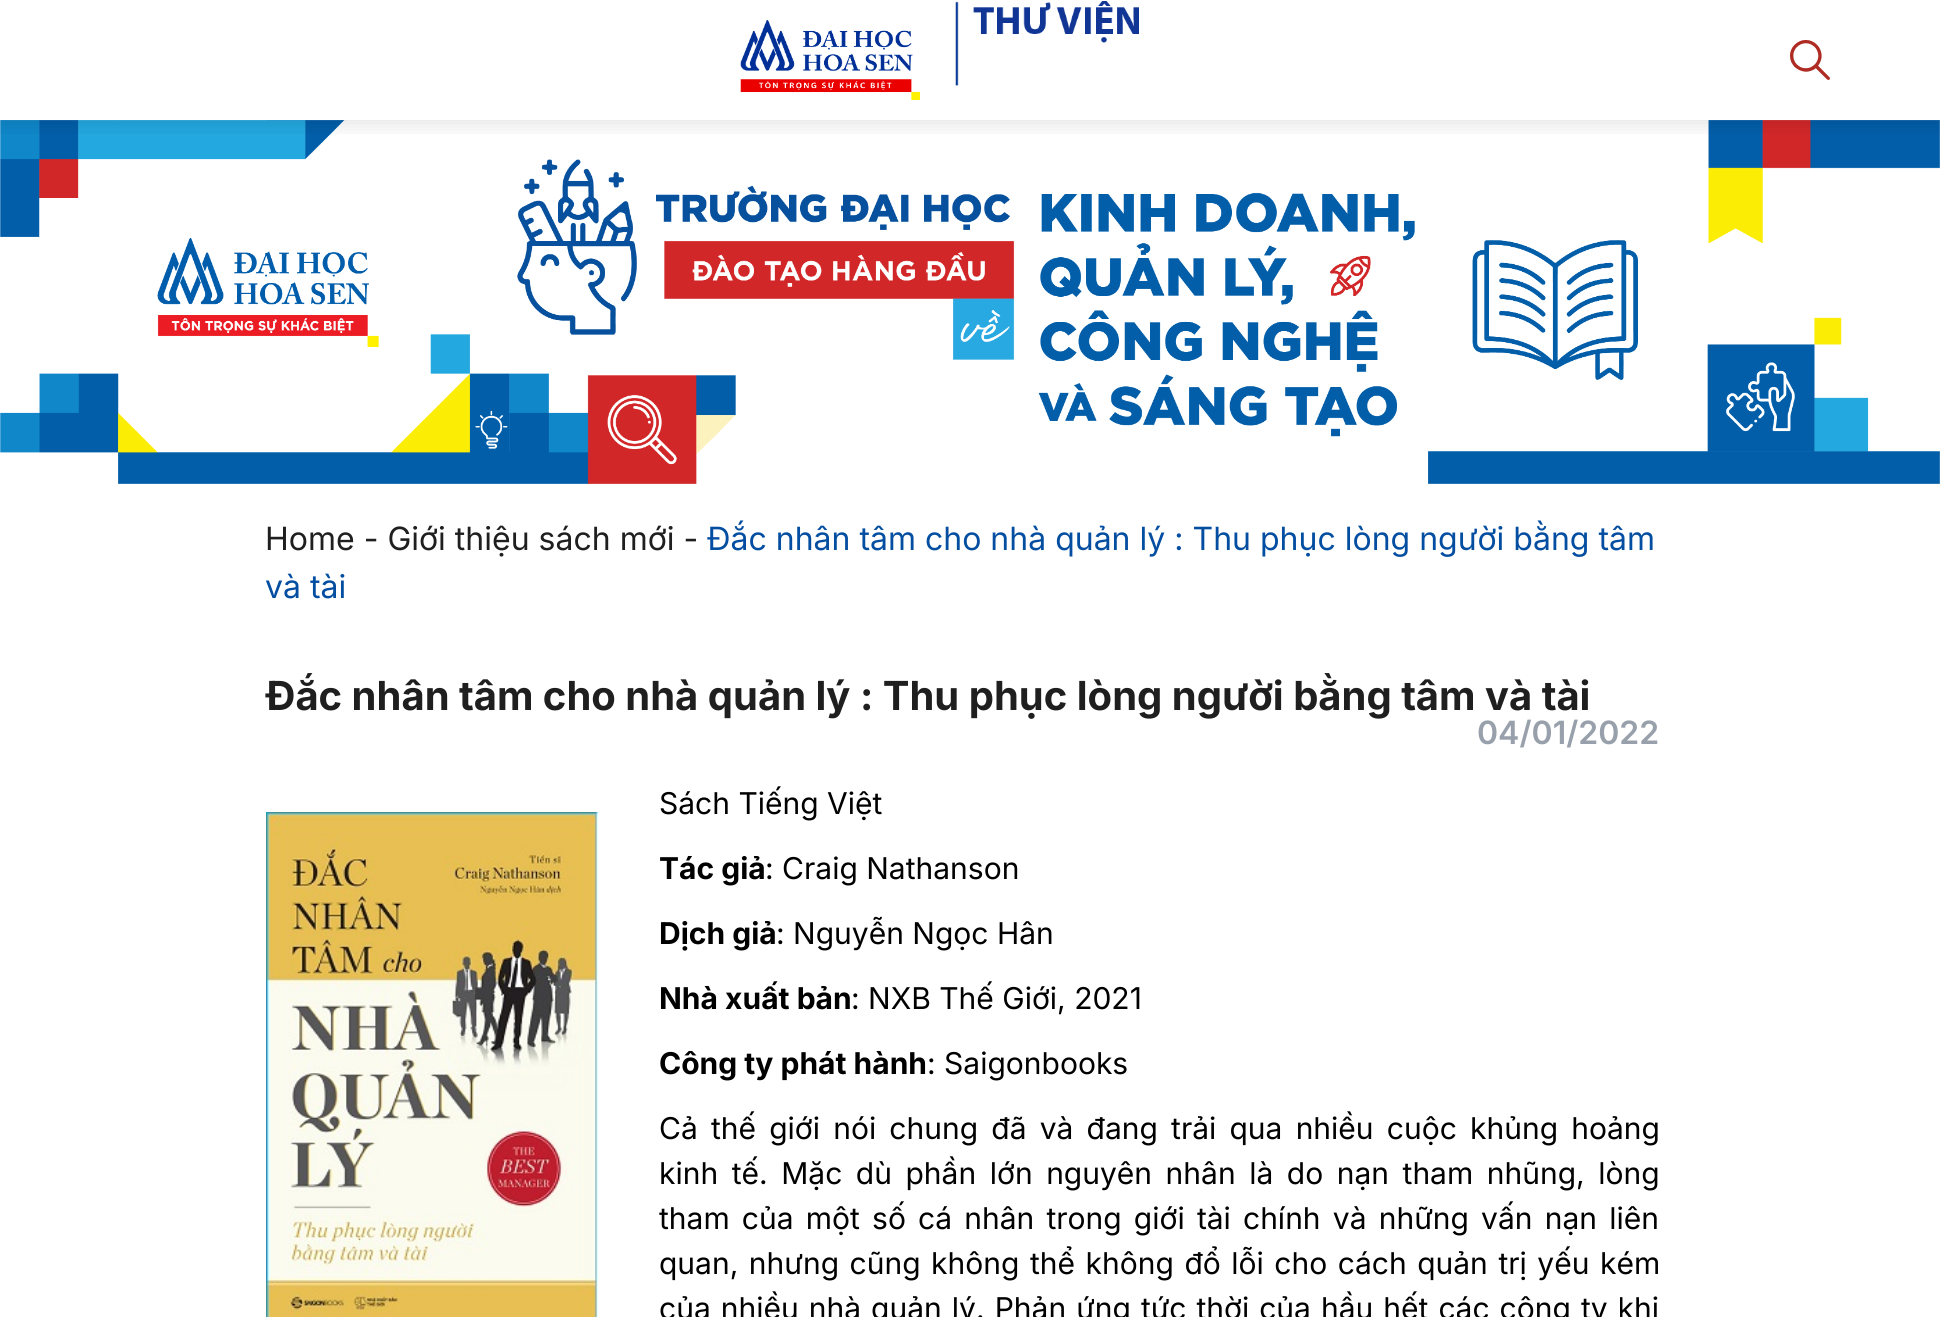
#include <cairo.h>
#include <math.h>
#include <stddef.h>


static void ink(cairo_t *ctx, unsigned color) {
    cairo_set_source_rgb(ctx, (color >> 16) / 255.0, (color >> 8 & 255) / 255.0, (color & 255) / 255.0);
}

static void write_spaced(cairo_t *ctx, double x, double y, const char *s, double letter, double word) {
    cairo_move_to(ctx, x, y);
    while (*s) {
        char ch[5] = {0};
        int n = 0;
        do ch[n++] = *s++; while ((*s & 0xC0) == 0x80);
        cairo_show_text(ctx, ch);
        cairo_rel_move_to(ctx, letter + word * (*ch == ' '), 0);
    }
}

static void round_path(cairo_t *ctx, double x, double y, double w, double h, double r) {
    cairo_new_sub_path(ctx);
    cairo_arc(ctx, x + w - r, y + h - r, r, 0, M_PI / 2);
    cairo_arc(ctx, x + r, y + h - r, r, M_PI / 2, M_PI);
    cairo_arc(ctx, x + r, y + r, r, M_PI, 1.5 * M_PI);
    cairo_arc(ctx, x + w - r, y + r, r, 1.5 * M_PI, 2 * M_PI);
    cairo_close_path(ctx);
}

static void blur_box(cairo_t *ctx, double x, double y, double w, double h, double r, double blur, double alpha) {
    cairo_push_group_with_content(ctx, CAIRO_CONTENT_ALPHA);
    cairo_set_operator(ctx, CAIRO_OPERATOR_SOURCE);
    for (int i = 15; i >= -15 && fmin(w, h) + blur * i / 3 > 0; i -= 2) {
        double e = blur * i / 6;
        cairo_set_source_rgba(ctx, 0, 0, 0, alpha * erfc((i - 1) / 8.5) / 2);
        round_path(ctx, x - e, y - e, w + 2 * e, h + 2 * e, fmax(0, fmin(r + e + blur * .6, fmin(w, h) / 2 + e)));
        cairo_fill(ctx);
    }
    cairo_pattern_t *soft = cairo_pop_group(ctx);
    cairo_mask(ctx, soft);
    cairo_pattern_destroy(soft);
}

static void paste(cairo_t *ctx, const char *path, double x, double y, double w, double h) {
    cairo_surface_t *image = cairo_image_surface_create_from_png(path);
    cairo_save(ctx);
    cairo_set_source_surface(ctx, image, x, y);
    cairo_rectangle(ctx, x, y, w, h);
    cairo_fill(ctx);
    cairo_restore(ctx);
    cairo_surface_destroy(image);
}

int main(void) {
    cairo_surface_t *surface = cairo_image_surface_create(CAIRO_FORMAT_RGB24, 1940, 1317);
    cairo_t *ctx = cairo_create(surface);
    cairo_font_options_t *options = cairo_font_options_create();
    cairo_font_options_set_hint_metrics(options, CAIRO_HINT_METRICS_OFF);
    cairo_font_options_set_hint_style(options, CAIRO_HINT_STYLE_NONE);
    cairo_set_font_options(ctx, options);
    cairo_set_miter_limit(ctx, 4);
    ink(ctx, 0xFFFFFF);
    cairo_paint(ctx);
    paste(ctx, "media/4.png", 0, 120, 1940, 364);
    cairo_save(ctx);
    cairo_rectangle(ctx, 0, 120, 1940, 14);
    cairo_clip(ctx);
    ink(ctx, 0x000000);
    blur_box(ctx, 0, 6, 1940, 120, 0, 10, 0.1);
    cairo_restore(ctx);
    paste(ctx, "media/1.png", 740, 20, 180, 80);
    paste(ctx, "media/2.png", 955, 1, 184, 85);
    paste(ctx, "media/3.png", 1790, 40, 40, 40);
    cairo_select_font_face(ctx, "Inter", CAIRO_FONT_SLANT_NORMAL, CAIRO_FONT_WEIGHT_NORMAL);
    cairo_set_font_size(ctx, 32);
    ink(ctx, 0x1F1F1F);
    cairo_move_to(ctx, 265, 550);
    cairo_show_text(ctx, "Home - Giới thiệu sách mới -");
    ink(ctx, 0x034EA1);
    cairo_move_to(ctx, 707, 550);
    cairo_show_text(ctx, "Đắc nhân tâm cho nhà quản lý : Thu phục lòng người bằng tâm");
    cairo_move_to(ctx, 265, 598);
    cairo_show_text(ctx, "và tài");
    cairo_select_font_face(ctx, "Inter", CAIRO_FONT_SLANT_NORMAL, CAIRO_FONT_WEIGHT_BOLD);
    cairo_set_font_size(ctx, 40);
    ink(ctx, 0x1F1F1F);
    cairo_move_to(ctx, 265, 710);
    cairo_show_text(ctx, "Đắc nhân tâm cho nhà quản lý : Thu phục lòng người bằng tâm và tài");
    cairo_select_font_face(ctx, "Inter SemiBold", CAIRO_FONT_SLANT_NORMAL, CAIRO_FONT_WEIGHT_NORMAL);
    cairo_set_font_size(ctx, 32);
    ink(ctx, 0x98A0AB);
    cairo_move_to(ctx, 1477, 744);
    cairo_show_text(ctx, "04/01/2022");
    paste(ctx, "media/5.png", 266, 812, 332, 505);
    cairo_select_font_face(ctx, "Inter", CAIRO_FONT_SLANT_NORMAL, CAIRO_FONT_WEIGHT_NORMAL);
    cairo_set_font_size(ctx, 30);
    ink(ctx, 0x000000);
    cairo_move_to(ctx, 659, 814);
    cairo_show_text(ctx, "Sách Tiếng Việt");
    cairo_select_font_face(ctx, "Inter", CAIRO_FONT_SLANT_NORMAL, CAIRO_FONT_WEIGHT_BOLD);
    cairo_move_to(ctx, 659, 879);
    cairo_show_text(ctx, "Tác giả");
    cairo_select_font_face(ctx, "Inter", CAIRO_FONT_SLANT_NORMAL, CAIRO_FONT_WEIGHT_NORMAL);
    cairo_move_to(ctx, 765, 879);
    cairo_show_text(ctx, ": Craig Nathanson");
    cairo_select_font_face(ctx, "Inter", CAIRO_FONT_SLANT_NORMAL, CAIRO_FONT_WEIGHT_BOLD);
    cairo_move_to(ctx, 659, 944);
    cairo_show_text(ctx, "Dịch giả");
    cairo_select_font_face(ctx, "Inter", CAIRO_FONT_SLANT_NORMAL, CAIRO_FONT_WEIGHT_NORMAL);
    cairo_move_to(ctx, 776, 944);
    cairo_show_text(ctx, ": Nguyễn Ngọc Hân");
    cairo_select_font_face(ctx, "Inter", CAIRO_FONT_SLANT_NORMAL, CAIRO_FONT_WEIGHT_BOLD);
    cairo_move_to(ctx, 659, 1009);
    cairo_show_text(ctx, "Nhà xuất bản");
    cairo_select_font_face(ctx, "Inter", CAIRO_FONT_SLANT_NORMAL, CAIRO_FONT_WEIGHT_NORMAL);
    cairo_move_to(ctx, 851, 1009);
    cairo_show_text(ctx, ": NXB Thế Giới, 2021");
    cairo_select_font_face(ctx, "Inter", CAIRO_FONT_SLANT_NORMAL, CAIRO_FONT_WEIGHT_BOLD);
    cairo_move_to(ctx, 659, 1074);
    cairo_show_text(ctx, "Công ty phát hành");
    cairo_select_font_face(ctx, "Inter", CAIRO_FONT_SLANT_NORMAL, CAIRO_FONT_WEIGHT_NORMAL);
    cairo_move_to(ctx, 927, 1074);
    cairo_show_text(ctx, ": Saigonbooks");
    write_spaced(ctx, 659, 1139, "Cả thế giới nói chung đã và đang trải qua nhiều cuộc khủng hoảng", 0, 4.75);
    write_spaced(ctx, 659, 1184, "kinh tế. Mặc dù phần lớn nguyên nhân là do nạn tham nhũng, lòng", 0, 5.1);
    write_spaced(ctx, 659, 1229, "tham của một số cá nhân trong giới tài chính và những vấn nạn liên", 0, 3.75);
    write_spaced(ctx, 659, 1274, "quan, nhưng cũng không thể không đổ lỗi cho cách quản trị yếu kém", 0, 2.1);
    write_spaced(ctx, 659, 1319, "của nhiều nhà quản lý. Phản ứng tức thời của hầu hết các công ty khi", 0, 1.6);
    cairo_surface_write_to_png(surface, "image.png");
    cairo_font_options_destroy(options);
    cairo_destroy(ctx);
    cairo_surface_destroy(surface);
    return 0;
}
